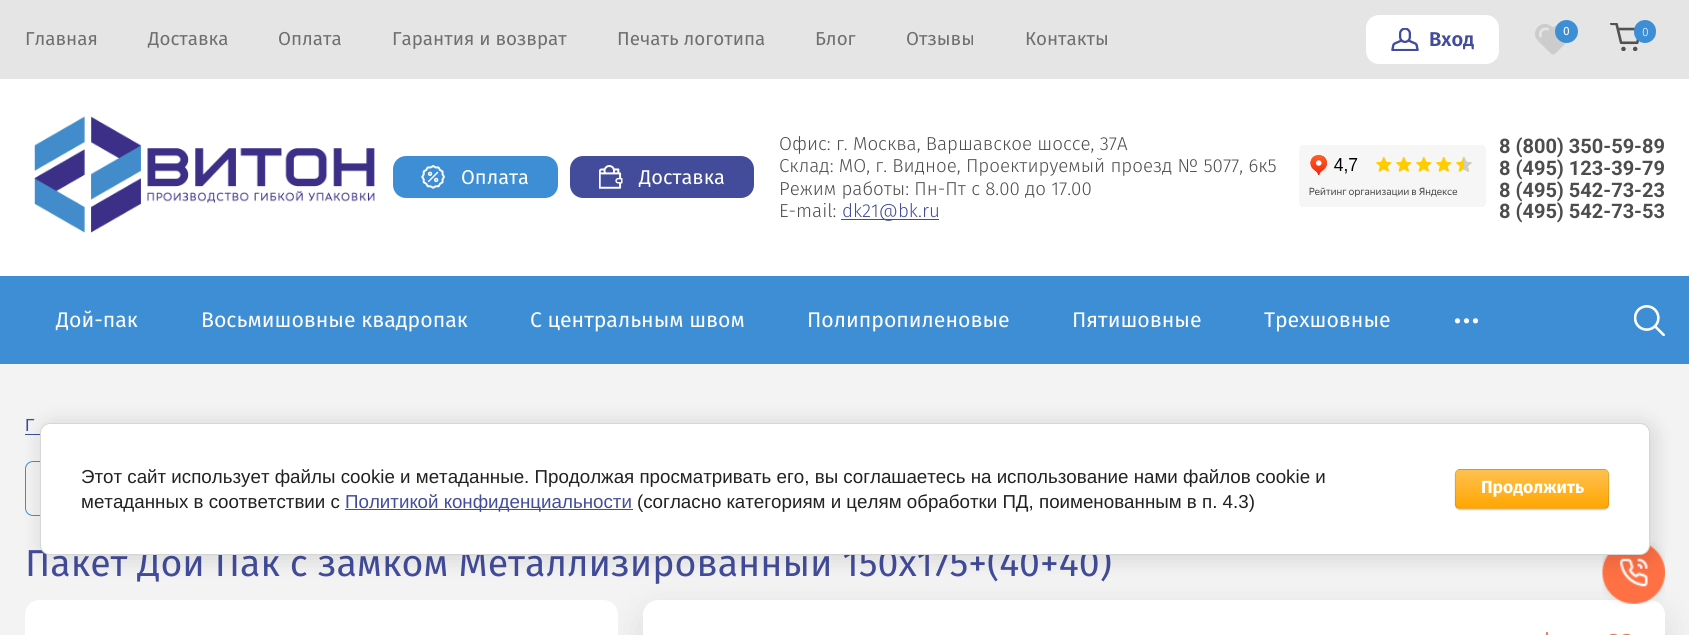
#include <cairo.h>
#include <math.h>
#include <stddef.h>

typedef struct { double x, y; const char *s; } line_t;

static void ink(cairo_t *ctx, unsigned color) {
    cairo_set_source_rgb(ctx, (color >> 16) / 255.0, (color >> 8 & 255) / 255.0, (color & 255) / 255.0);
}

static void round_path(cairo_t *ctx, double x, double y, double w, double h, double r) {
    cairo_new_sub_path(ctx);
    cairo_arc(ctx, x + w - r, y + h - r, r, 0, M_PI / 2);
    cairo_arc(ctx, x + r, y + h - r, r, M_PI / 2, M_PI);
    cairo_arc(ctx, x + r, y + r, r, M_PI, 1.5 * M_PI);
    cairo_arc(ctx, x + w - r, y + r, r, 1.5 * M_PI, 2 * M_PI);
    cairo_close_path(ctx);
}

static void blur_box(cairo_t *ctx, double x, double y, double w, double h, double r, double blur, double alpha) {
    cairo_push_group_with_content(ctx, CAIRO_CONTENT_ALPHA);
    cairo_set_operator(ctx, CAIRO_OPERATOR_SOURCE);
    for (int i = 15; i >= -15 && fmin(w, h) + blur * i / 3 > 0; i -= 2) {
        double e = blur * i / 6;
        cairo_set_source_rgba(ctx, 0, 0, 0, alpha * erfc((i - 1) / 8.5) / 2);
        round_path(ctx, x - e, y - e, w + 2 * e, h + 2 * e, fmax(0, fmin(r + e + blur * .6, fmin(w, h) / 2 + e)));
        cairo_fill(ctx);
    }
    cairo_pattern_t *soft = cairo_pop_group(ctx);
    cairo_mask(ctx, soft);
    cairo_pattern_destroy(soft);
}

static void paste(cairo_t *ctx, const char *path, double x, double y, double w, double h) {
    cairo_surface_t *image = cairo_image_surface_create_from_png(path);
    cairo_save(ctx);
    cairo_set_source_surface(ctx, image, x, y);
    cairo_rectangle(ctx, x, y, w, h);
    cairo_fill(ctx);
    cairo_restore(ctx);
    cairo_surface_destroy(image);
}

int main(void) {
    cairo_surface_t *surface = cairo_image_surface_create(CAIRO_FORMAT_RGB24, 1689, 635);
    cairo_t *ctx = cairo_create(surface);
    cairo_font_options_t *options = cairo_font_options_create();
    cairo_font_options_set_hint_metrics(options, CAIRO_HINT_METRICS_OFF);
    cairo_font_options_set_hint_style(options, CAIRO_HINT_STYLE_NONE);
    cairo_set_font_options(ctx, options);
    cairo_set_miter_limit(ctx, 4);
    cairo_pattern_t *gradient;
    ink(ctx, 0xF3F3F3);
    cairo_paint(ctx);
    ink(ctx, 0xFFFFFF);
    cairo_rectangle(ctx, 0, 79, 1689, 197);
    cairo_fill(ctx);
    ink(ctx, 0xE5E5E5);
    cairo_rectangle(ctx, 0, 0, 1689, 79);
    cairo_fill(ctx);
    cairo_select_font_face(ctx, "Fira Sans", CAIRO_FONT_SLANT_NORMAL, CAIRO_FONT_WEIGHT_NORMAL);
    cairo_set_font_size(ctx, 18.75);
    ink(ctx, 0x6F6F6F);
    {
        static const line_t items[] = {
            {25, 45, "Главная"},
            {148, 45, "Доставка"},
            {278, 45, "Оплата"},
            {392, 45, "Гарантия и возврат"},
            {617, 45, "Печать логотипа"},
            {815, 45, "Блог"},
            {906, 45, "Отзывы"},
            {1025, 45, "Контакты"},
        };
        for (size_t i = 0; i < sizeof items / sizeof *items; i++) {
            cairo_move_to(ctx, items[i].x, items[i].y);
            cairo_show_text(ctx, items[i].s);
        }
    }
    ink(ctx, 0xFFFFFF);
    round_path(ctx, 1366, 15, 133, 49, 13);
    cairo_fill(ctx);
    paste(ctx, "media/1.png", 1391, 28, 28, 23);
    cairo_select_font_face(ctx, "Fira Sans SemiBold", CAIRO_FONT_SLANT_NORMAL, CAIRO_FONT_WEIGHT_NORMAL);
    cairo_set_font_size(ctx, 20);
    ink(ctx, 0x424C9A);
    cairo_move_to(ctx, 1429, 46);
    cairo_show_text(ctx, "Вход");
    paste(ctx, "media/2.png", 1535, 24, 32, 31);
    ink(ctx, 0x3E8ED5);
    cairo_arc(ctx, 1566.5, 31.5, 11.5, 0, 2 * M_PI);
    cairo_fill(ctx);
    cairo_select_font_face(ctx, "Fira Sans", CAIRO_FONT_SLANT_NORMAL, CAIRO_FONT_WEIGHT_NORMAL);
    cairo_set_font_size(ctx, 12);
    ink(ctx, 0xFFFFFF);
    cairo_move_to(ctx, 1563, 35);
    cairo_show_text(ctx, "0");
    paste(ctx, "media/3.png", 1610, 23, 29, 28);
    ink(ctx, 0x3E8ED5);
    round_path(ctx, 1634, 20, 22, 23, 11);
    cairo_fill(ctx);
    cairo_select_font_face(ctx, "Fira Sans Light", CAIRO_FONT_SLANT_NORMAL, CAIRO_FONT_WEIGHT_NORMAL);
    ink(ctx, 0xFFFFFF);
    cairo_move_to(ctx, 1642, 36);
    cairo_show_text(ctx, "0");
    paste(ctx, "media/4.png", 34, 116, 341, 117);
    ink(ctx, 0x3E8ED5);
    round_path(ctx, 393, 156, 165, 42, 13);
    cairo_fill(ctx);
    paste(ctx, "media/5.png", 421, 165, 24, 24);
    cairo_select_font_face(ctx, "Fira Sans", CAIRO_FONT_SLANT_NORMAL, CAIRO_FONT_WEIGHT_NORMAL);
    cairo_set_font_size(ctx, 20);
    ink(ctx, 0xFFFFFF);
    cairo_move_to(ctx, 461, 184);
    cairo_show_text(ctx, "Оплата");
    ink(ctx, 0x424C9A);
    round_path(ctx, 570, 156, 184, 42, 13);
    cairo_fill(ctx);
    paste(ctx, "media/6.png", 599, 165, 24, 24);
    ink(ctx, 0xFFFFFF);
    cairo_move_to(ctx, 639, 184);
    cairo_show_text(ctx, "Доставка");
    cairo_select_font_face(ctx, "Fira Sans Light", CAIRO_FONT_SLANT_NORMAL, CAIRO_FONT_WEIGHT_NORMAL);
    cairo_set_font_size(ctx, 18.75);
    ink(ctx, 0x4D4D4D);
    {
        static const line_t items[] = {
            {779, 150, "Офис: г. Москва, Варшавское шоссе, 37А"},
            {779, 172, "Склад: МО, г. Видное, Проектируемый проезд № 5077, 6к5"},
            {779, 195, "Режим работы: Пн-Пт с 8.00 до 17.00"},
            {779, 217, "E-mail:"},
        };
        for (size_t i = 0; i < sizeof items / sizeof *items; i++) {
            cairo_move_to(ctx, items[i].x, items[i].y);
            cairo_show_text(ctx, items[i].s);
        }
    }
    ink(ctx, 0x424C9A);
    cairo_rectangle(ctx, 841, 219, 98, 1);
    cairo_fill(ctx);
    cairo_move_to(ctx, 842, 217);
    cairo_show_text(ctx, "dk21@bk.ru");
    paste(ctx, "media/7.png", 1299, 145, 187, 62);
    cairo_select_font_face(ctx, "Roboto", CAIRO_FONT_SLANT_NORMAL, CAIRO_FONT_WEIGHT_BOLD);
    cairo_set_font_size(ctx, 20);
    ink(ctx, 0x4D4D4D);
    {
        static const line_t items[] = {
            {1499, 153, "8 (800) 350-59-89"},
            {1499, 175, "8 (495) 123-39-79"},
            {1499, 197, "8 (495) 542-73-23"},
            {1499, 218, "8 (495) 542-73-53"},
        };
        for (size_t i = 0; i < sizeof items / sizeof *items; i++) {
            cairo_move_to(ctx, items[i].x, items[i].y);
            cairo_show_text(ctx, items[i].s);
        }
    }
    ink(ctx, 0x3E8ED5);
    cairo_rectangle(ctx, 0, 276, 1689, 88);
    cairo_fill(ctx);
    cairo_select_font_face(ctx, "Fira Sans", CAIRO_FONT_SLANT_NORMAL, CAIRO_FONT_WEIGHT_NORMAL);
    cairo_set_font_size(ctx, 21.25);
    ink(ctx, 0xFFFFFF);
    {
        static const line_t items[] = {
            {56, 327, "Дой-пак"},
            {201, 327, "Восьмишовные квадропак"},
            {530, 327, "С центральным швом"},
            {807, 327, "Полипропиленовые"},
            {1072, 327, "Пятишовные"},
            {1264, 327, "Трехшовные"},
        };
        for (size_t i = 0; i < sizeof items / sizeof *items; i++) {
            cairo_move_to(ctx, items[i].x, items[i].y);
            cairo_show_text(ctx, items[i].s);
        }
    }
    cairo_set_font_size(ctx, 37.5);
    cairo_move_to(ctx, 1453, 323);
    cairo_show_text(ctx, "...");
    paste(ctx, "media/8.png", 1634, 305, 31, 31);
    cairo_select_font_face(ctx, "Liberation Sans", CAIRO_FONT_SLANT_NORMAL, CAIRO_FONT_WEIGHT_NORMAL);
    cairo_set_font_size(ctx, 17.5);
    ink(ctx, 0x424C9A);
    cairo_move_to(ctx, 25, 431);
    cairo_show_text(ctx, "Г");
    cairo_rectangle(ctx, 25, 434, 15, 1);
    cairo_fill(ctx);
    round_path(ctx, 25.5, 461.5, 1124, 54, 7.5);
    ink(ctx, 0x3E8ED5);
    cairo_set_line_width(ctx, 1);
    cairo_stroke(ctx);
    cairo_select_font_face(ctx, "Fira Sans", CAIRO_FONT_SLANT_NORMAL, CAIRO_FONT_WEIGHT_NORMAL);
    cairo_set_font_size(ctx, 37.5);
    ink(ctx, 0x424C9A);
    cairo_move_to(ctx, 25, 576);
    cairo_show_text(ctx, "Пакет Дой Пак с замком Металлизированный 150х175+(40+40)");
    ink(ctx, 0x000000);
    blur_box(ctx, 643, 613, 1022, 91, 15, 18, 0.1);
    ink(ctx, 0xFFFFFF);
    round_path(ctx, 25, 600, 593, 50, 15);
    cairo_fill(ctx);
    round_path(ctx, 643, 600, 1022, 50, 15);
    cairo_fill(ctx);
    paste(ctx, "media/9.png", 1545, 631, 4, 4);
    paste(ctx, "media/10.png", 1609, 633, 22, 2);
    paste(ctx, "media/11.png", 1602, 542, 63, 62);
    ink(ctx, 0x000000);
    blur_box(ctx, 43, 425, 1610, 133, 10, 11, 0.14);
    ink(ctx, 0xFFFFFF);
    round_path(ctx, 40.5, 423.5, 1609, 131, 9.5);
    cairo_fill_preserve(ctx);
    ink(ctx, 0xD6D6D6);
    cairo_stroke(ctx);
    cairo_select_font_face(ctx, "Liberation Sans", CAIRO_FONT_SLANT_NORMAL, CAIRO_FONT_WEIGHT_NORMAL);
    cairo_set_font_size(ctx, 18.75);
    ink(ctx, 0x212121);
    cairo_move_to(ctx, 81, 483);
    cairo_show_text(ctx, "Этот сайт использует файлы cookie и метаданные. Продолжая просматривать его, вы соглашаетесь на использование нами файлов cookie и");
    cairo_move_to(ctx, 81, 508);
    cairo_show_text(ctx, "метаданных в соответствии с");
    ink(ctx, 0x424C9A);
    cairo_rectangle(ctx, 345, 509, 288, 1);
    cairo_fill(ctx);
    cairo_move_to(ctx, 345, 508);
    cairo_show_text(ctx, "Политикой конфиденциальности");
    ink(ctx, 0x212121);
    cairo_move_to(ctx, 637, 508);
    cairo_show_text(ctx, "(согласно категориям и целям обработки ПД, поименованным в п. 4.3)");
    ink(ctx, 0x000000);
    blur_box(ctx, 1455, 470, 154, 40, 5, 0.5, 0.2);
    cairo_save(ctx);
    round_path(ctx, 1455, 469, 154, 40, 5);
    cairo_clip(ctx);
    gradient = cairo_pattern_create_linear(1532, 433, 1532, 470);
    cairo_pattern_add_color_stop_rgba(gradient, 0, 1, 0.757, 0.306, 1);
    cairo_pattern_add_color_stop_rgba(gradient, 1, 1, 0.651, 0.004, 1);
    cairo_set_source(ctx, gradient);
    cairo_pattern_destroy(gradient);
    cairo_rectangle(ctx, 1455, 469, 154, 1);
    cairo_fill(ctx);
    gradient = cairo_pattern_create_linear(1532, 470, 1532, 508);
    cairo_pattern_add_color_stop_rgba(gradient, 0, 1, 0.757, 0.306, 1);
    cairo_pattern_add_color_stop_rgba(gradient, 1, 1, 0.651, 0.004, 1);
    cairo_set_source(ctx, gradient);
    cairo_pattern_destroy(gradient);
    cairo_rectangle(ctx, 1455, 470, 154, 38);
    cairo_fill(ctx);
    gradient = cairo_pattern_create_linear(1532, 508, 1532, 545);
    cairo_pattern_add_color_stop_rgba(gradient, 0, 1, 0.757, 0.306, 1);
    cairo_pattern_add_color_stop_rgba(gradient, 1, 1, 0.651, 0.004, 1);
    cairo_set_source(ctx, gradient);
    cairo_pattern_destroy(gradient);
    cairo_rectangle(ctx, 1455, 508, 154, 1);
    cairo_fill(ctx);
    cairo_restore(ctx);
    round_path(ctx, 1455.5, 469.5, 153, 39, 4.5);
    cairo_set_source_rgba(ctx, 0, 0, 0, 0.1);
    cairo_stroke(ctx);
    cairo_select_font_face(ctx, "Fira Sans", CAIRO_FONT_SLANT_NORMAL, CAIRO_FONT_WEIGHT_BOLD);
    cairo_set_font_size(ctx, 17.5);
    ink(ctx, 0xFFFFFF);
    cairo_move_to(ctx, 1481, 493);
    cairo_show_text(ctx, "Продолжить");
    cairo_surface_write_to_png(surface, "image.png");
    cairo_font_options_destroy(options);
    cairo_destroy(ctx);
    cairo_surface_destroy(surface);
    return 0;
}
